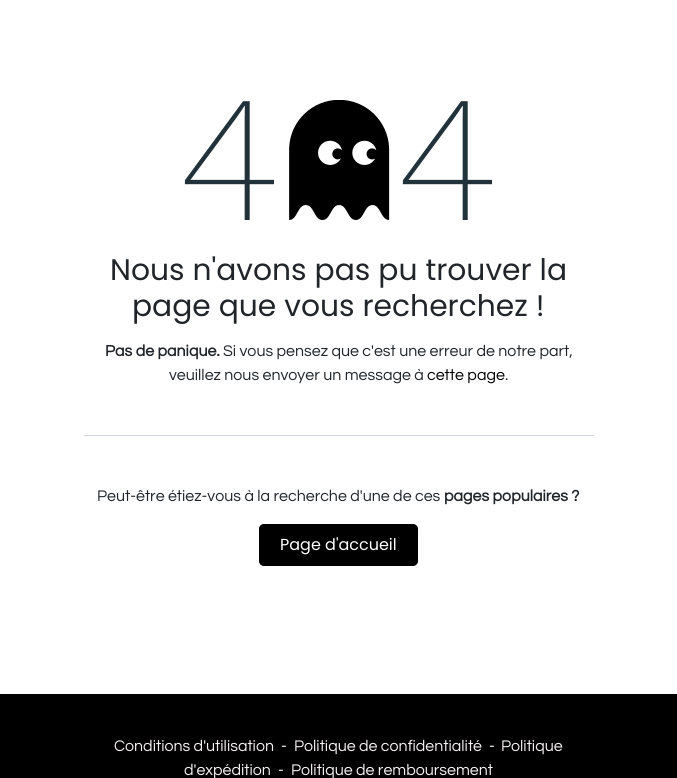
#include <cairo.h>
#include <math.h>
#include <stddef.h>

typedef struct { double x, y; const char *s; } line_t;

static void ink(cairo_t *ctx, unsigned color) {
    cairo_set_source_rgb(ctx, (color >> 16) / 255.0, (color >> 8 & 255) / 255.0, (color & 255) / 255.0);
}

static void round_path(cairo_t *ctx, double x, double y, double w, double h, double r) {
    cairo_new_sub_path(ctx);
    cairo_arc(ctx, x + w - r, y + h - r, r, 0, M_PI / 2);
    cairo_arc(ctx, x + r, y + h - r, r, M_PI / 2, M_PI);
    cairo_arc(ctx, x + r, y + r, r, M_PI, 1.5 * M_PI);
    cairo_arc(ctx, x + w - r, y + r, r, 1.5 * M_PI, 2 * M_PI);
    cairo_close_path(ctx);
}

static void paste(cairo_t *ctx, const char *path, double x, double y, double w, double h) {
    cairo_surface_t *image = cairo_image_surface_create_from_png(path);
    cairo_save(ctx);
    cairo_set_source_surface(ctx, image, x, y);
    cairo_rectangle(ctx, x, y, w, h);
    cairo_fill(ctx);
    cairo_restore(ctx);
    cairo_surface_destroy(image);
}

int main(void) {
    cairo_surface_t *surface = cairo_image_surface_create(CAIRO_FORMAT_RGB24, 677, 778);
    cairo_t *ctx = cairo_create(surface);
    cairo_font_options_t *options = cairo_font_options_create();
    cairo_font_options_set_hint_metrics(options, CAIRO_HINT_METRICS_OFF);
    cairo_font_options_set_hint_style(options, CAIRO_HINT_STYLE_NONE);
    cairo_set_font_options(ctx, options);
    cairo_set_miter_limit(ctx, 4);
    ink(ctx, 0xFFFFFF);
    cairo_paint(ctx);
    paste(ctx, "media/1.png", 184, 100, 308, 120);
    cairo_select_font_face(ctx, "Poppins", CAIRO_FONT_SLANT_NORMAL, CAIRO_FONT_WEIGHT_NORMAL);
    cairo_set_font_size(ctx, 29.75);
    ink(ctx, 0x212529);
    cairo_move_to(ctx, 110, 280);
    cairo_show_text(ctx, "Nous n'avons pas pu trouver la");
    cairo_move_to(ctx, 132, 316);
    cairo_show_text(ctx, "page que vous recherchez !");
    cairo_select_font_face(ctx, "Questrial", CAIRO_FONT_SLANT_NORMAL, CAIRO_FONT_WEIGHT_BOLD);
    cairo_set_font_size(ctx, 16);
    cairo_move_to(ctx, 105, 356);
    cairo_show_text(ctx, "Pas de panique.");
    cairo_select_font_face(ctx, "Questrial", CAIRO_FONT_SLANT_NORMAL, CAIRO_FONT_WEIGHT_NORMAL);
    cairo_move_to(ctx, 223, 356);
    cairo_show_text(ctx, "Si vous pensez que c'est une erreur de notre part,");
    cairo_move_to(ctx, 169, 380);
    cairo_show_text(ctx, "veuillez nous envoyer un message à");
    ink(ctx, 0x000000);
    cairo_move_to(ctx, 427, 380);
    cairo_show_text(ctx, "cette page");
    ink(ctx, 0x212529);
    cairo_move_to(ctx, 505, 380);
    cairo_show_text(ctx, ".");
    ink(ctx, 0xCED4DA);
    cairo_rectangle(ctx, 84, 435, 510, 1);
    cairo_fill(ctx);
    ink(ctx, 0x212529);
    cairo_move_to(ctx, 97, 501);
    cairo_show_text(ctx, "Peut-être étiez-vous à la recherche d'une de ces");
    cairo_select_font_face(ctx, "Questrial", CAIRO_FONT_SLANT_NORMAL, CAIRO_FONT_WEIGHT_BOLD);
    cairo_move_to(ctx, 444, 501);
    cairo_show_text(ctx, "pages populaires ?");
    ink(ctx, 0x000000);
    round_path(ctx, 259.5, 524.5, 158, 41, 4.5);
    cairo_fill_preserve(ctx);
    cairo_set_line_width(ctx, 1);
    cairo_stroke(ctx);
    cairo_select_font_face(ctx, "Poppins", CAIRO_FONT_SLANT_NORMAL, CAIRO_FONT_WEIGHT_NORMAL);
    ink(ctx, 0xFFFFFF);
    cairo_move_to(ctx, 280, 550);
    cairo_show_text(ctx, "Page d'accueil");
    ink(ctx, 0x000000);
    cairo_rectangle(ctx, 0, 694, 677, 84);
    cairo_fill(ctx);
    cairo_select_font_face(ctx, "Questrial", CAIRO_FONT_SLANT_NORMAL, CAIRO_FONT_WEIGHT_NORMAL);
    ink(ctx, 0xF5F0F2);
    {
        static const line_t items[] = {
            {114, 751, "Conditions d'utilisation"},
            {281, 751, "-"},
            {294, 751, "Politique de confidentialité"},
            {489, 751, "-"},
            {501, 751, "Politique"},
            {184, 775, "d'expédition"},
            {278, 775, "-"},
            {291, 775, "Politique de remboursement"},
        };
        for (size_t i = 0; i < sizeof items / sizeof *items; i++) {
            cairo_move_to(ctx, items[i].x, items[i].y);
            cairo_show_text(ctx, items[i].s);
        }
    }
    cairo_surface_write_to_png(surface, "image.png");
    cairo_font_options_destroy(options);
    cairo_destroy(ctx);
    cairo_surface_destroy(surface);
    return 0;
}
